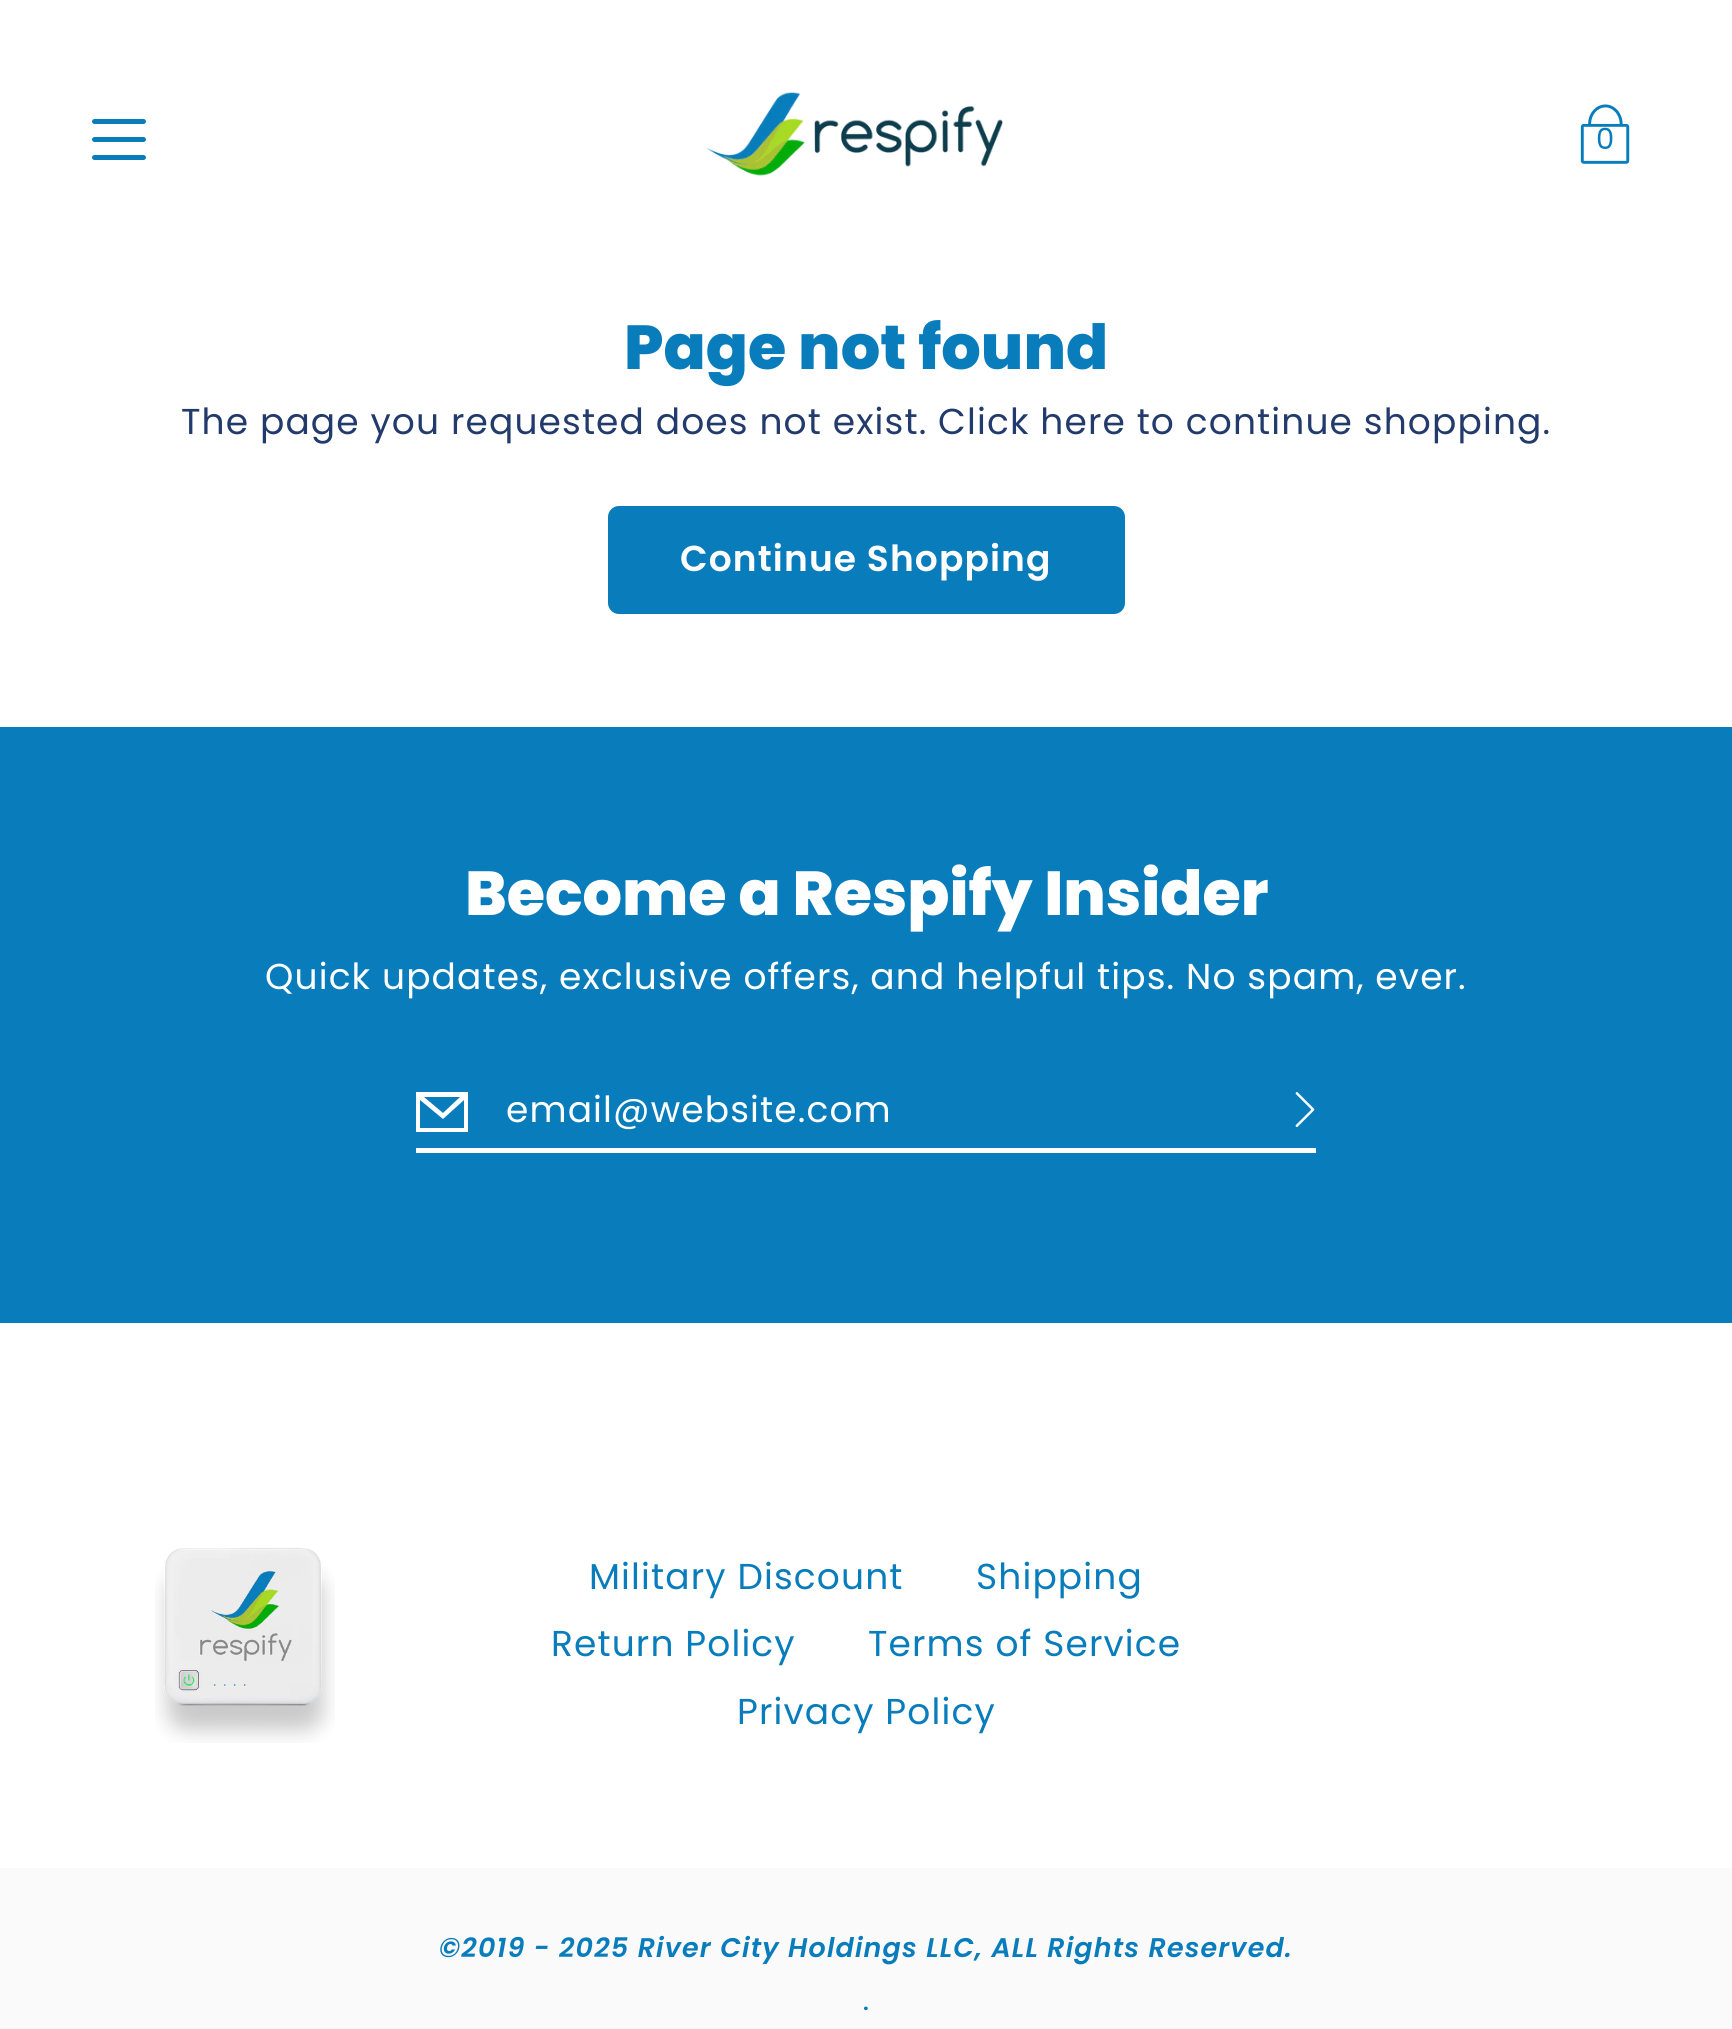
#include <cairo.h>
#include <math.h>
#include <stddef.h>

typedef struct { double x, y; const char *s; } line_t;

static void ink(cairo_t *ctx, unsigned color) {
    cairo_set_source_rgb(ctx, (color >> 16) / 255.0, (color >> 8 & 255) / 255.0, (color & 255) / 255.0);
}

static void write_spaced(cairo_t *ctx, double x, double y, const char *s, double letter, double word) {
    cairo_move_to(ctx, x, y);
    while (*s) {
        char ch[5] = {0};
        int n = 0;
        do ch[n++] = *s++; while ((*s & 0xC0) == 0x80);
        cairo_show_text(ctx, ch);
        cairo_rel_move_to(ctx, letter + word * (*ch == ' '), 0);
    }
}

static void round_path(cairo_t *ctx, double x, double y, double w, double h, double r) {
    cairo_new_sub_path(ctx);
    cairo_arc(ctx, x + w - r, y + h - r, r, 0, M_PI / 2);
    cairo_arc(ctx, x + r, y + h - r, r, M_PI / 2, M_PI);
    cairo_arc(ctx, x + r, y + r, r, M_PI, 1.5 * M_PI);
    cairo_arc(ctx, x + w - r, y + r, r, 1.5 * M_PI, 2 * M_PI);
    cairo_close_path(ctx);
}

static void paste(cairo_t *ctx, const char *path, double x, double y, double w, double h) {
    cairo_surface_t *image = cairo_image_surface_create_from_png(path);
    cairo_save(ctx);
    cairo_set_source_surface(ctx, image, x, y);
    cairo_rectangle(ctx, x, y, w, h);
    cairo_fill(ctx);
    cairo_restore(ctx);
    cairo_surface_destroy(image);
}

int main(void) {
    cairo_surface_t *surface = cairo_image_surface_create(CAIRO_FORMAT_RGB24, 1732, 2029);
    cairo_t *ctx = cairo_create(surface);
    cairo_font_options_t *options = cairo_font_options_create();
    cairo_font_options_set_hint_metrics(options, CAIRO_HINT_METRICS_OFF);
    cairo_font_options_set_hint_style(options, CAIRO_HINT_STYLE_NONE);
    cairo_set_font_options(ctx, options);
    cairo_set_miter_limit(ctx, 4);
    ink(ctx, 0xFFFFFF);
    cairo_paint(ctx);
    paste(ctx, "media/1.png", 706, 92, 297, 84);
    ink(ctx, 0x097DBC);
    round_path(ctx, 92, 137, 54, 5, 2.5);
    cairo_fill(ctx);
    round_path(ctx, 92, 119, 54, 5, 2.5);
    cairo_fill(ctx);
    round_path(ctx, 92, 155, 54, 5, 2.5);
    cairo_fill(ctx);
    paste(ctx, "media/2.png", 1580, 104, 50, 60);
    cairo_select_font_face(ctx, "Poppins", CAIRO_FONT_SLANT_NORMAL, CAIRO_FONT_WEIGHT_NORMAL);
    cairo_set_font_size(ctx, 29);
    cairo_move_to(ctx, 1596, 149);
    cairo_show_text(ctx, "0");
    cairo_select_font_face(ctx, "Poppins ExtraBold", CAIRO_FONT_SLANT_NORMAL, CAIRO_FONT_WEIGHT_NORMAL);
    cairo_set_font_size(ctx, 62.1);
    cairo_move_to(ctx, 624, 369);
    cairo_show_text(ctx, "Page not found");
    cairo_select_font_face(ctx, "Poppins", CAIRO_FONT_SLANT_NORMAL, CAIRO_FONT_WEIGHT_NORMAL);
    cairo_set_font_size(ctx, 36);
    ink(ctx, 0x233B6C);
    write_spaced(ctx, 181, 434, "The page you requested does not exist. Click here to continue shopping.", 1.12, 0);
    ink(ctx, 0x097DBC);
    round_path(ctx, 608, 506, 517, 108, 11);
    cairo_fill(ctx);
    cairo_select_font_face(ctx, "Poppins SemiBold", CAIRO_FONT_SLANT_NORMAL, CAIRO_FONT_WEIGHT_NORMAL);
    ink(ctx, 0xFFFFFF);
    write_spaced(ctx, 680, 571, "Continue Shopping", 1.12, 0);
    ink(ctx, 0x097DBC);
    cairo_rectangle(ctx, 0, 727, 1732, 596);
    cairo_fill(ctx);
    cairo_select_font_face(ctx, "Poppins ExtraBold", CAIRO_FONT_SLANT_NORMAL, CAIRO_FONT_WEIGHT_NORMAL);
    cairo_set_font_size(ctx, 62.1);
    ink(ctx, 0xFFFFFF);
    cairo_move_to(ctx, 465, 915);
    cairo_show_text(ctx, "Become a Respify Insider");
    cairo_select_font_face(ctx, "Poppins", CAIRO_FONT_SLANT_NORMAL, CAIRO_FONT_WEIGHT_NORMAL);
    cairo_set_font_size(ctx, 36);
    write_spaced(ctx, 265, 989, "Quick updates, exclusive offers, and helpful tips. No spam, ever.", 1.12, 0);
    cairo_rectangle(ctx, 416, 1148, 900, 5);
    cairo_fill(ctx);
    cairo_new_path(ctx);
    cairo_move_to(ctx, 416, 1092);
    cairo_line_to(ctx, 416, 1132);
    cairo_line_to(ctx, 468, 1132);
    cairo_line_to(ctx, 468, 1092);
    cairo_close_path(ctx);
    cairo_move_to(ctx, 460, 1097);
    cairo_line_to(ctx, 443, 1113);
    cairo_line_to(ctx, 424, 1097);
    cairo_close_path(ctx);
    cairo_move_to(ctx, 420, 1128);
    cairo_line_to(ctx, 420, 1100);
    cairo_line_to(ctx, 443, 1119);
    cairo_line_to(ctx, 464, 1100);
    cairo_line_to(ctx, 464, 1128);
    cairo_close_path(ctx);
    cairo_fill(ctx);
    write_spaced(ctx, 506, 1122, "email@website.com", 1.12, 0);
    paste(ctx, "media/3.png", 1295, 1092, 20, 35);
    paste(ctx, "media/4.png", 155, 1547, 180, 196);
    ink(ctx, 0x097DBC);
    {
        static const line_t items[] = {
            {589, 1589, "Military Discount"},
            {976, 1589, "Shipping"},
            {551, 1656, "Return Policy"},
            {868, 1656, "Terms of Service"},
            {737, 1724, "Privacy Policy"},
        };
        for (size_t i = 0; i < sizeof items / sizeof *items; i++) {
            write_spaced(ctx, items[i].x, items[i].y, items[i].s, 1.12, 0);
        }
    }
    ink(ctx, 0xFAFAFA);
    cairo_rectangle(ctx, 0, 1868, 1732, 161);
    cairo_fill(ctx);
    cairo_select_font_face(ctx, "Poppins SemiBold", CAIRO_FONT_SLANT_ITALIC, CAIRO_FONT_WEIGHT_NORMAL);
    cairo_set_font_size(ctx, 27);
    ink(ctx, 0x097DBC);
    write_spaced(ctx, 439, 1957, "©2019 - 2025 River City Holdings LLC, ALL Rights Reserved.", 1.12, 0);
    cairo_select_font_face(ctx, "Poppins SemiBold", CAIRO_FONT_SLANT_NORMAL, CAIRO_FONT_WEIGHT_NORMAL);
    cairo_set_font_size(ctx, 22);
    write_spaced(ctx, 863, 2010, ".", 1.12, 0);
    cairo_surface_write_to_png(surface, "image.png");
    cairo_font_options_destroy(options);
    cairo_destroy(ctx);
    cairo_surface_destroy(surface);
    return 0;
}
